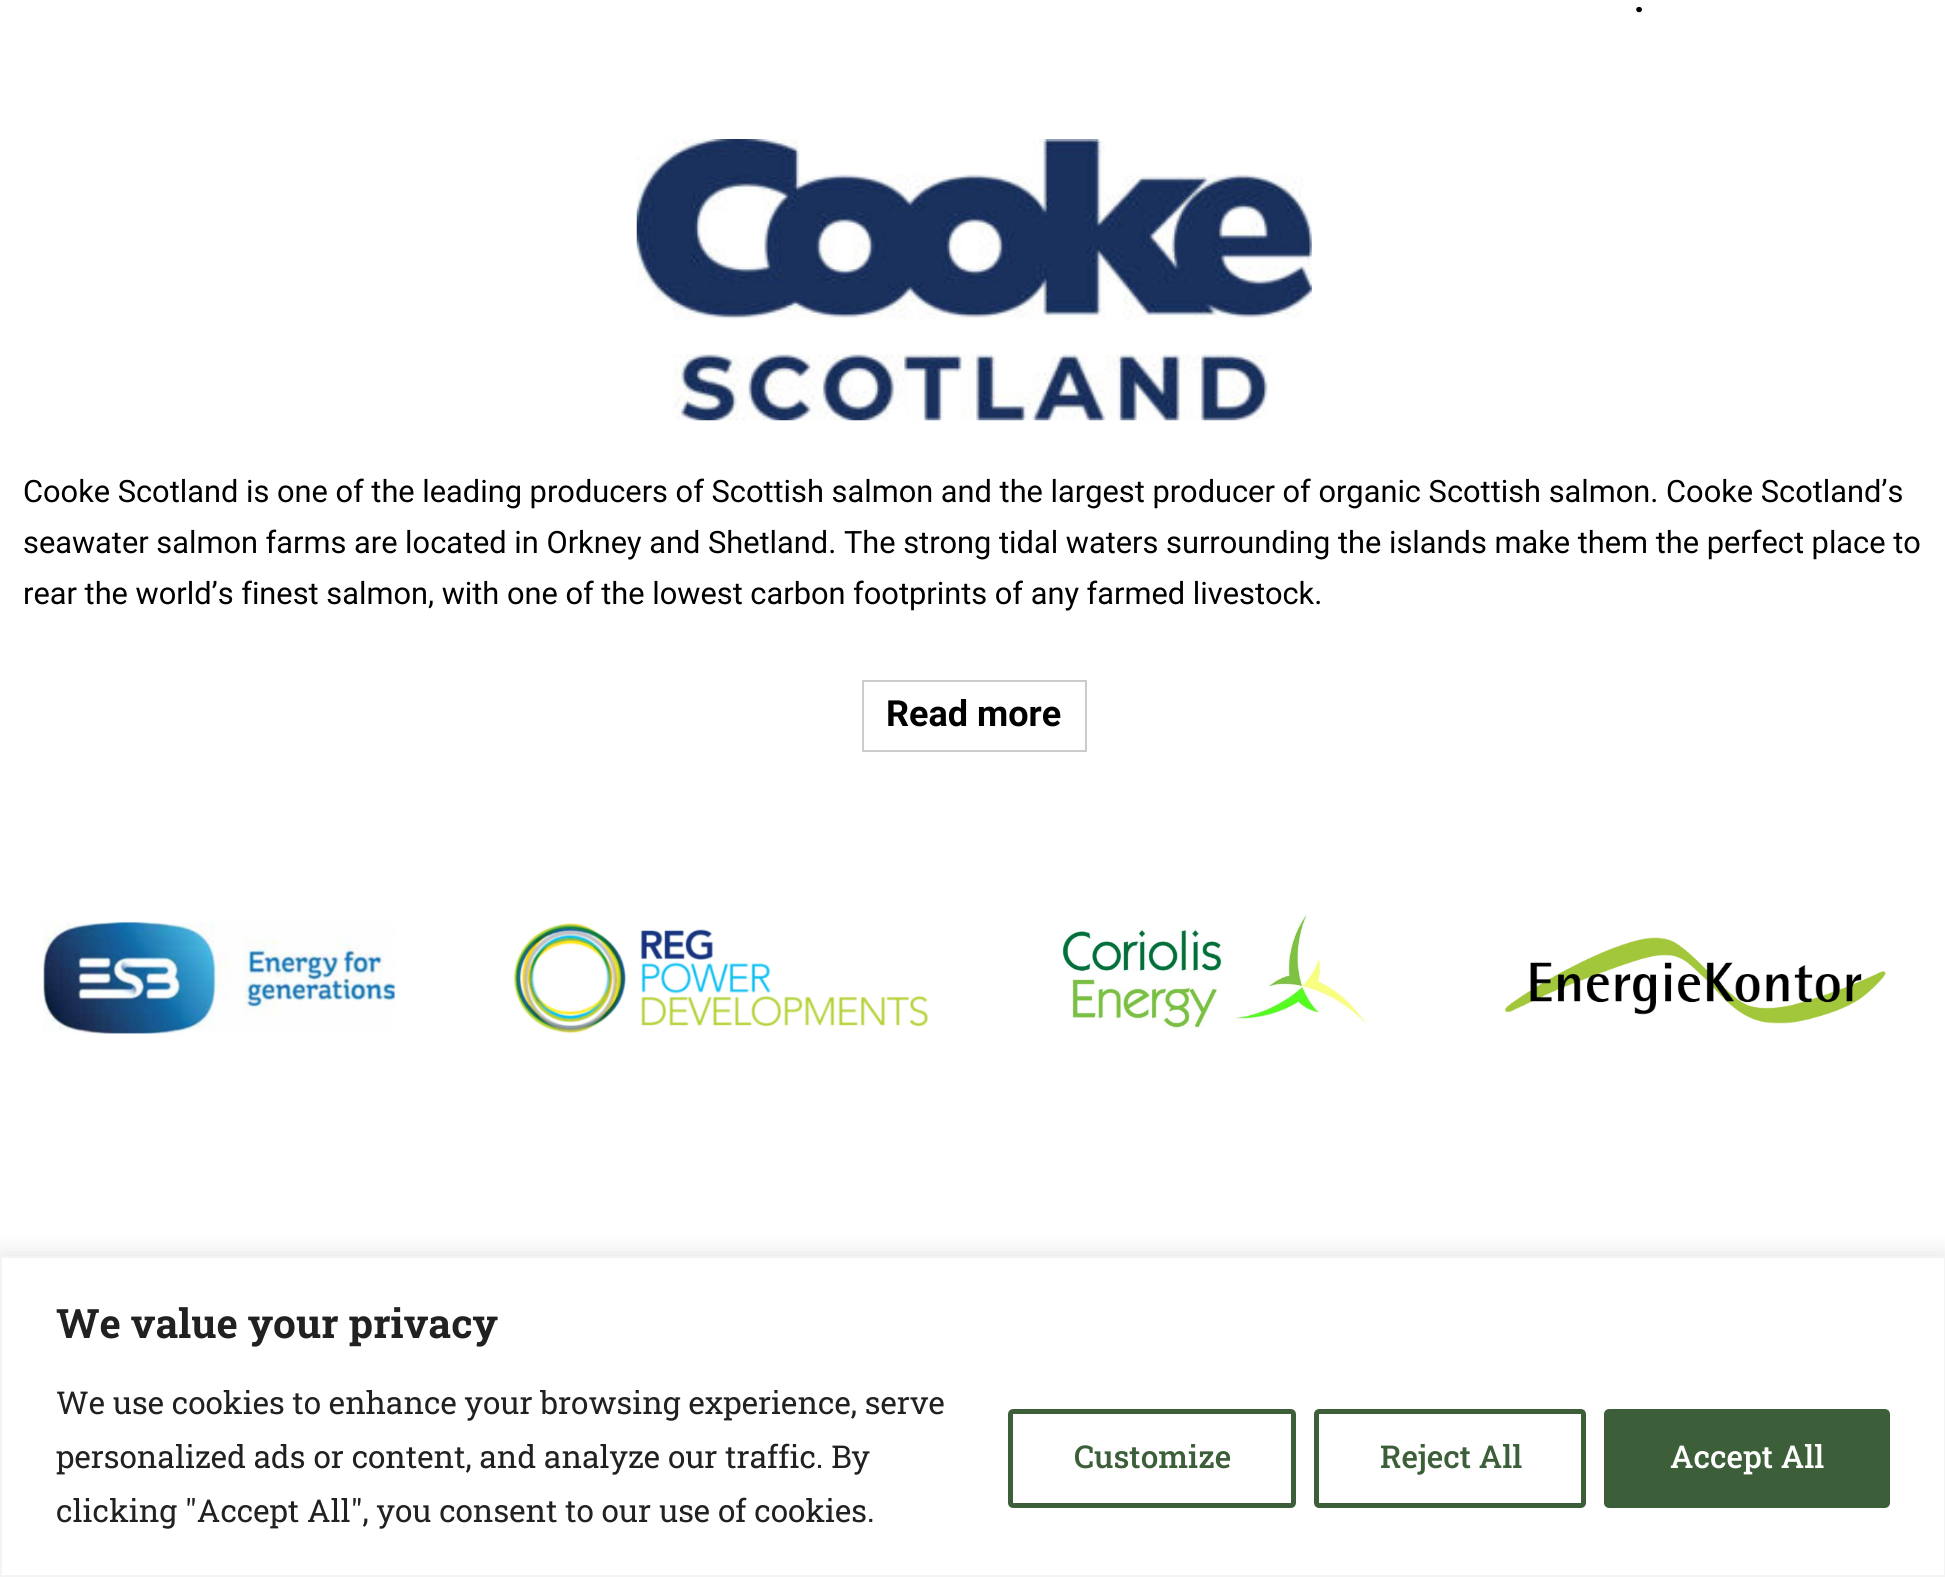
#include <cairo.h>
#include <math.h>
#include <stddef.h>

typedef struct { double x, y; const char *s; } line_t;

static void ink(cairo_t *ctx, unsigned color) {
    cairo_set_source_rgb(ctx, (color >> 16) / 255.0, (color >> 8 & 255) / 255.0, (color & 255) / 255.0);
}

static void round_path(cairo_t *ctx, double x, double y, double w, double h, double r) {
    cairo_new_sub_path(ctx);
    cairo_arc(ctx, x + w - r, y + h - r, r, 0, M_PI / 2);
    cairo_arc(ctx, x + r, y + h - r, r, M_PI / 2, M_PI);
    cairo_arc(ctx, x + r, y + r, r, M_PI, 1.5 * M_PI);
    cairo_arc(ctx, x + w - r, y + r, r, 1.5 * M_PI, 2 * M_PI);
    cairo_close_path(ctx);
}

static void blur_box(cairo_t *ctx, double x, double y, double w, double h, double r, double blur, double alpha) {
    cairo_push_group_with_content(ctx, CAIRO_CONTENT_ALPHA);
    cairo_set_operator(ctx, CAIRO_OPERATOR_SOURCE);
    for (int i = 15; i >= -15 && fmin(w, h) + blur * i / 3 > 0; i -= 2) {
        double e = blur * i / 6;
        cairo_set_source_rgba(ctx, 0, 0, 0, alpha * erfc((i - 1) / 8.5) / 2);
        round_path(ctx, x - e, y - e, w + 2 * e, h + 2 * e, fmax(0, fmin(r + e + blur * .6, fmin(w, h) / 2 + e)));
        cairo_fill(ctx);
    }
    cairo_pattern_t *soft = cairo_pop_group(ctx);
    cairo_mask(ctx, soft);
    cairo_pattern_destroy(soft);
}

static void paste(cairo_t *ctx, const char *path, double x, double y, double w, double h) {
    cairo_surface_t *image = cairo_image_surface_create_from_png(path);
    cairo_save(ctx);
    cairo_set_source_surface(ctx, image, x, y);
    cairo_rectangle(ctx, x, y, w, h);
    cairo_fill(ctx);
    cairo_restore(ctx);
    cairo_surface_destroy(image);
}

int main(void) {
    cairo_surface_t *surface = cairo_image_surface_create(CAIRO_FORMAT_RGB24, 1945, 1577);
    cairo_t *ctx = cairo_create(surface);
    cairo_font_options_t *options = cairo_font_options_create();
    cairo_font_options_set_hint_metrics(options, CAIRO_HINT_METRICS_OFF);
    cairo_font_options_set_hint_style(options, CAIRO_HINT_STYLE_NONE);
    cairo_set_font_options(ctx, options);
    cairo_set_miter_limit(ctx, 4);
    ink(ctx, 0xFFFFFF);
    cairo_paint(ctx);
    cairo_select_font_face(ctx, "Roboto", CAIRO_FONT_SLANT_NORMAL, CAIRO_FONT_WEIGHT_BOLD);
    cairo_set_font_size(ctx, 36);
    ink(ctx, 0x000000);
    cairo_move_to(ctx, 1634, 12);
    cairo_show_text(ctx, ".");
    paste(ctx, "media/1.png", 636, 139, 676, 282);
    cairo_select_font_face(ctx, "Roboto", CAIRO_FONT_SLANT_NORMAL, CAIRO_FONT_WEIGHT_NORMAL);
    cairo_set_font_size(ctx, 30.78);
    {
        static const line_t items[] = {
            {23, 502, "Cooke Scotland is one of the leading producers of Scottish salmon and the largest producer of organic Scottish salmon. Cooke Scotland’s"},
            {23, 553, "seawater salmon farms are located in Orkney and Shetland. The strong tidal waters surrounding the islands make them the perfect place to"},
            {23, 604, "rear the world’s finest salmon, with one of the lowest carbon footprints of any farmed livestock."},
        };
        for (size_t i = 0; i < sizeof items / sizeof *items; i++) {
            cairo_move_to(ctx, items[i].x, items[i].y);
            cairo_show_text(ctx, items[i].s);
        }
    }
    cairo_rectangle(ctx, 863, 681, 223, 70);
    ink(ctx, 0xCCCCCC);
    cairo_stroke(ctx);
    cairo_select_font_face(ctx, "Roboto", CAIRO_FONT_SLANT_NORMAL, CAIRO_FONT_WEIGHT_BOLD);
    cairo_set_font_size(ctx, 36);
    ink(ctx, 0x000000);
    cairo_move_to(ctx, 886, 726);
    cairo_show_text(ctx, "Read more");
    paste(ctx, "media/2.png", 43, 921, 886, 113);
    paste(ctx, "media/3.png", 1060, 914, 308, 115);
    paste(ctx, "media/4.png", 1505, 937, 381, 87);
    ink(ctx, 0xACABAB);
    blur_box(ctx, 0, 1253, 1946, 322, 0, 11, 0.3);
    ink(ctx, 0xFFFFFF);
    cairo_rectangle(ctx, 1, 1257, 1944, 319);
    cairo_fill_preserve(ctx);
    ink(ctx, 0xF4F4F4);
    cairo_stroke(ctx);
    cairo_select_font_face(ctx, "Roboto Slab", CAIRO_FONT_SLANT_NORMAL, CAIRO_FONT_WEIGHT_BOLD);
    cairo_set_font_size(ctx, 40.5);
    ink(ctx, 0x212121);
    cairo_move_to(ctx, 56, 1338);
    cairo_show_text(ctx, "We value your privacy");
    cairo_select_font_face(ctx, "Roboto Slab", CAIRO_FONT_SLANT_NORMAL, CAIRO_FONT_WEIGHT_NORMAL);
    cairo_set_font_size(ctx, 31.5);
    {
        static const line_t items[] = {
            {56, 1414, "We use cookies to enhance your browsing experience, serve"},
            {56, 1468, "personalized ads or content, and analyze our traffic. By"},
            {56, 1522, "clicking \"Accept All\", you consent to our use of cookies."},
        };
        for (size_t i = 0; i < sizeof items / sizeof *items; i++) {
            cairo_move_to(ctx, items[i].x, items[i].y);
            cairo_show_text(ctx, items[i].s);
        }
    }
    round_path(ctx, 1010.5, 1411.5, 283, 94, 2.5);
    ink(ctx, 0x3C5F39);
    cairo_set_line_width(ctx, 5);
    cairo_stroke(ctx);
    cairo_select_font_face(ctx, "Roboto Slab Medium", CAIRO_FONT_SLANT_NORMAL, CAIRO_FONT_WEIGHT_NORMAL);
    cairo_move_to(ctx, 1074, 1468);
    cairo_show_text(ctx, "Customize");
    round_path(ctx, 1316.5, 1411.5, 267, 94, 2.5);
    cairo_stroke(ctx);
    cairo_move_to(ctx, 1380, 1468);
    cairo_show_text(ctx, "Reject All");
    round_path(ctx, 1606.5, 1411.5, 281, 94, 2.5);
    cairo_fill_preserve(ctx);
    cairo_stroke(ctx);
    ink(ctx, 0xFFFFFF);
    cairo_move_to(ctx, 1670, 1468);
    cairo_show_text(ctx, "Accept All");
    cairo_surface_write_to_png(surface, "image.png");
    cairo_font_options_destroy(options);
    cairo_destroy(ctx);
    cairo_surface_destroy(surface);
    return 0;
}
